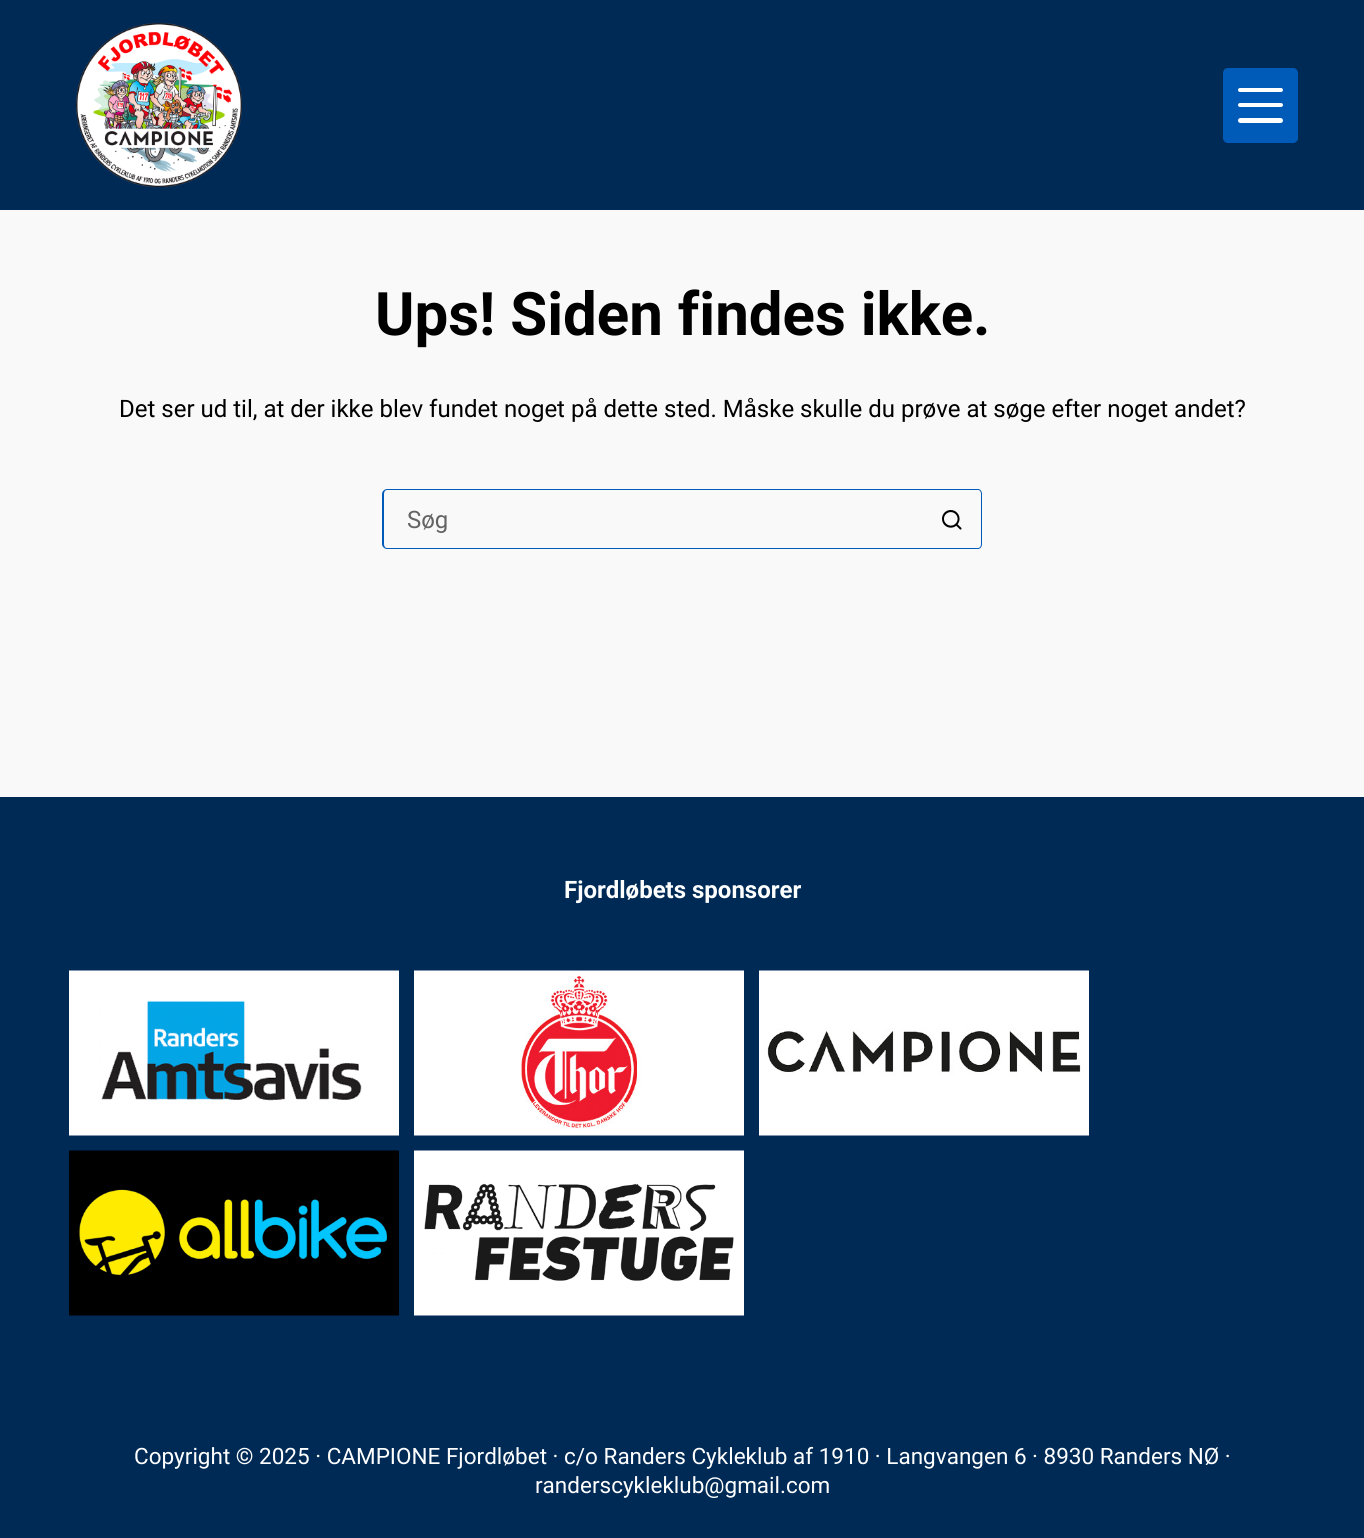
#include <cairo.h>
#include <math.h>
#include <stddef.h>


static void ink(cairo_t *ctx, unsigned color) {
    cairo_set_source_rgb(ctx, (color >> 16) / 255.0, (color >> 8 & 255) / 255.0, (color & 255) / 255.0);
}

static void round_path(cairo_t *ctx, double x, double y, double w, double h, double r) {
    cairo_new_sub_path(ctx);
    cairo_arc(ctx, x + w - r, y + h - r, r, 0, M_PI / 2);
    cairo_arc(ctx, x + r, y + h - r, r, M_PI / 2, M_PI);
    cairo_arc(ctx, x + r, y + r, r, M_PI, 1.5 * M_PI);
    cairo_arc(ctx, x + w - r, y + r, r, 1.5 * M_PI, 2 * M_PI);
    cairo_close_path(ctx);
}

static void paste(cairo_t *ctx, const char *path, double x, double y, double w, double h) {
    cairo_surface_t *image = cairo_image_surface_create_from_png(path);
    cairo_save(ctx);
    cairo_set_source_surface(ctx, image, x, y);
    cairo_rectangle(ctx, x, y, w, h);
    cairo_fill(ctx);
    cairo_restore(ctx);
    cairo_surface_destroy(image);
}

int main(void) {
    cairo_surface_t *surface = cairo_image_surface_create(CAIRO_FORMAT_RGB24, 1364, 1538);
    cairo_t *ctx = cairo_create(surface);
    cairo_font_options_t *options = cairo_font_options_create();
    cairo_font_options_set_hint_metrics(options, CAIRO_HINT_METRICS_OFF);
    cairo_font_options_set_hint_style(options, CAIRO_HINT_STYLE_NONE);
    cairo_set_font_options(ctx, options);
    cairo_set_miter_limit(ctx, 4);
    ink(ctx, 0xF9F9F9);
    cairo_paint(ctx);
    ink(ctx, 0x002A56);
    cairo_rectangle(ctx, 0, 0, 1364, 210);
    cairo_fill(ctx);
    paste(ctx, "media/1.png", 76, 22, 166, 166);
    ink(ctx, 0x005AB8);
    round_path(ctx, 1223, 68, 75, 75, 5);
    cairo_fill(ctx);
    ink(ctx, 0xFFFFFF);
    round_path(ctx, 1238, 88, 45, 4, 2);
    cairo_fill(ctx);
    round_path(ctx, 1238, 103, 45, 4, 2);
    cairo_fill(ctx);
    round_path(ctx, 1238, 118, 45, 5, 2.5);
    cairo_fill(ctx);
    cairo_select_font_face(ctx, "Roboto", CAIRO_FONT_SLANT_NORMAL, CAIRO_FONT_WEIGHT_BOLD);
    cairo_set_font_size(ctx, 60);
    ink(ctx, 0x000000);
    cairo_move_to(ctx, 375, 335);
    cairo_show_text(ctx, "Ups! Siden findes ikke.");
    cairo_select_font_face(ctx, "Roboto", CAIRO_FONT_SLANT_NORMAL, CAIRO_FONT_WEIGHT_NORMAL);
    cairo_set_font_size(ctx, 24);
    cairo_move_to(ctx, 119, 417);
    cairo_show_text(ctx, "Det ser ud til, at der ikke blev fundet noget på dette sted. Måske skulle du prøve at søge efter noget andet?");
    ink(ctx, 0x005AB8);
    cairo_set_fill_rule(ctx, CAIRO_FILL_RULE_EVEN_ODD);
    cairo_new_path(ctx);
    cairo_move_to(ctx, 387, 489);
    cairo_line_to(ctx, 922, 489);
    cairo_line_to(ctx, 922, 549);
    cairo_line_to(ctx, 387, 549);
    cairo_curve_to(ctx, 385, 549, 382, 547, 382, 544);
    cairo_line_to(ctx, 382, 494);
    cairo_curve_to(ctx, 382, 491, 385, 489, 387, 489);
    cairo_close_path(ctx);
    cairo_move_to(ctx, 387, 490);
    cairo_line_to(ctx, 922, 490);
    cairo_line_to(ctx, 922, 548);
    cairo_line_to(ctx, 387, 548);
    cairo_curve_to(ctx, 385, 548, 384, 546, 384, 544);
    cairo_line_to(ctx, 384, 494);
    cairo_curve_to(ctx, 384, 492, 385, 490, 387, 490);
    cairo_close_path(ctx);
    cairo_fill(ctx);
    ink(ctx, 0x646464);
    cairo_move_to(ctx, 407, 528);
    cairo_show_text(ctx, "Søg");
    ink(ctx, 0x005AB8);
    cairo_new_path(ctx);
    cairo_move_to(ctx, 922, 489);
    cairo_line_to(ctx, 978, 489);
    cairo_curve_to(ctx, 980, 489, 982, 491, 982, 494);
    cairo_line_to(ctx, 982, 544);
    cairo_curve_to(ctx, 982, 547, 980, 549, 978, 549);
    cairo_line_to(ctx, 922, 549);
    cairo_close_path(ctx);
    cairo_move_to(ctx, 922, 490);
    cairo_line_to(ctx, 978, 490);
    cairo_curve_to(ctx, 980, 490, 981, 492, 981, 494);
    cairo_line_to(ctx, 981, 544);
    cairo_curve_to(ctx, 981, 546, 980, 548, 978, 548);
    cairo_line_to(ctx, 922, 548);
    cairo_close_path(ctx);
    cairo_fill(ctx);
    paste(ctx, "media/2.png", 942, 510, 20, 20);
    ink(ctx, 0x002A56);
    cairo_rectangle(ctx, 0, 797, 1364, 741);
    cairo_fill(ctx);
    cairo_select_font_face(ctx, "Roboto", CAIRO_FONT_SLANT_NORMAL, CAIRO_FONT_WEIGHT_BOLD);
    ink(ctx, 0xFFFFFF);
    cairo_move_to(ctx, 564, 898);
    cairo_show_text(ctx, "Fjordløbets sponsorer");
    paste(ctx, "media/3.png", 69, 970, 330, 166);
    paste(ctx, "media/4.png", 414, 970, 330, 166);
    paste(ctx, "media/5.png", 759, 970, 330, 166);
    paste(ctx, "media/6.png", 69, 1150, 330, 166);
    paste(ctx, "media/7.png", 414, 1150, 330, 166);
    cairo_select_font_face(ctx, "Roboto", CAIRO_FONT_SLANT_NORMAL, CAIRO_FONT_WEIGHT_NORMAL);
    cairo_set_font_size(ctx, 22.5);
    cairo_move_to(ctx, 134, 1464);
    cairo_show_text(ctx, "Copyright © 2025 · CAMPIONE Fjordløbet · c/o Randers Cykleklub af 1910 · Langvangen 6 · 8930 Randers NØ ·");
    cairo_move_to(ctx, 535, 1493);
    cairo_show_text(ctx, "randerscykleklub@gmail.com");
    cairo_surface_write_to_png(surface, "image.png");
    cairo_font_options_destroy(options);
    cairo_destroy(ctx);
    cairo_surface_destroy(surface);
    return 0;
}
